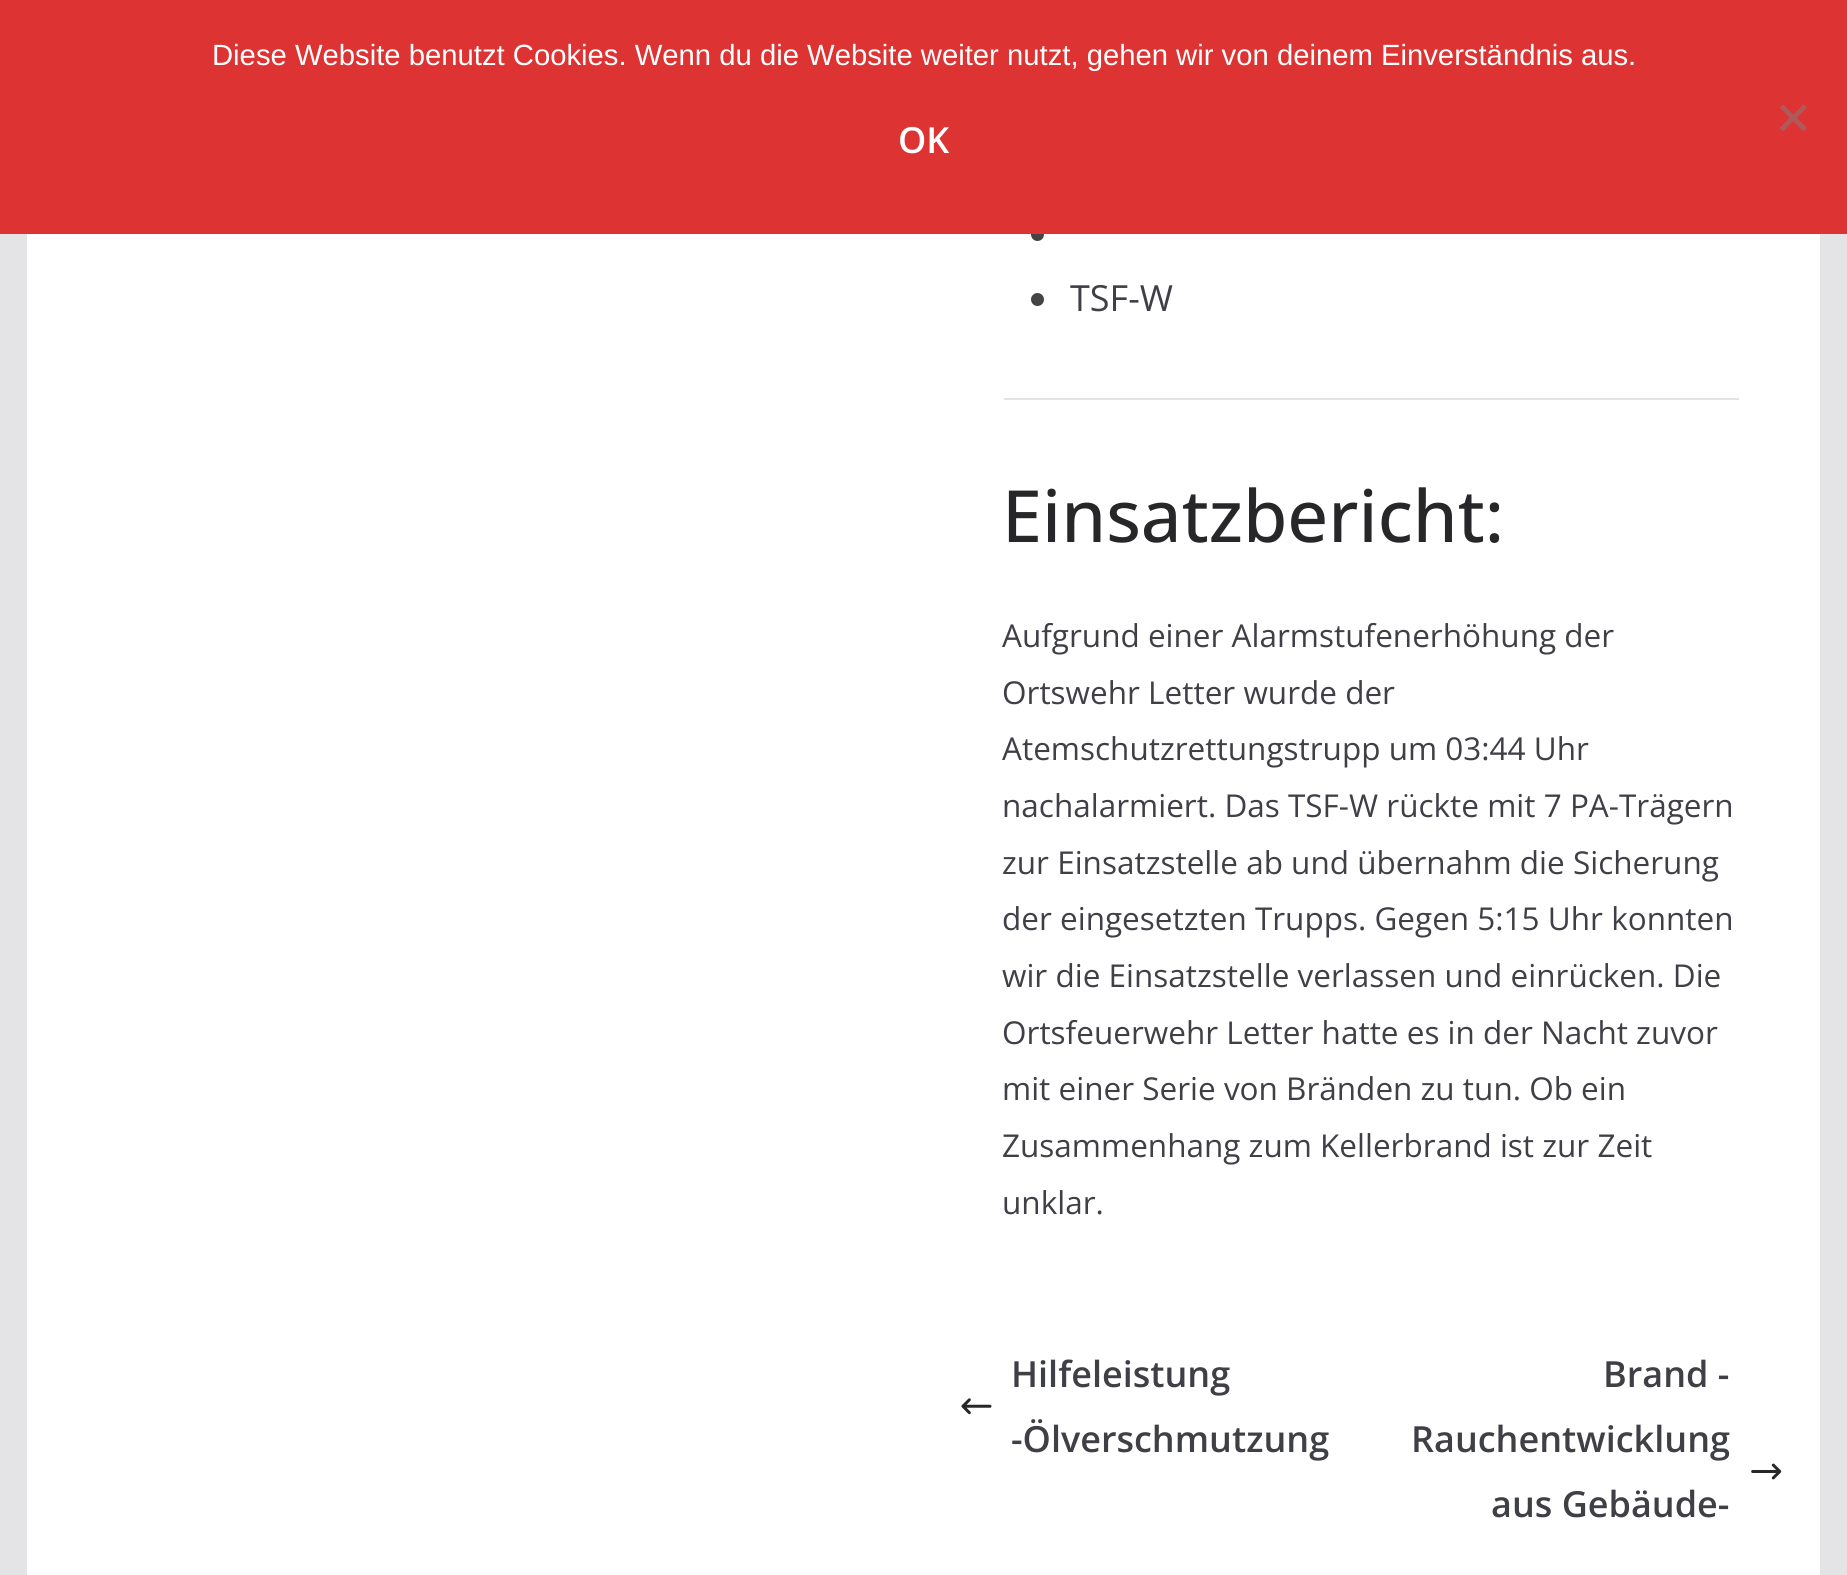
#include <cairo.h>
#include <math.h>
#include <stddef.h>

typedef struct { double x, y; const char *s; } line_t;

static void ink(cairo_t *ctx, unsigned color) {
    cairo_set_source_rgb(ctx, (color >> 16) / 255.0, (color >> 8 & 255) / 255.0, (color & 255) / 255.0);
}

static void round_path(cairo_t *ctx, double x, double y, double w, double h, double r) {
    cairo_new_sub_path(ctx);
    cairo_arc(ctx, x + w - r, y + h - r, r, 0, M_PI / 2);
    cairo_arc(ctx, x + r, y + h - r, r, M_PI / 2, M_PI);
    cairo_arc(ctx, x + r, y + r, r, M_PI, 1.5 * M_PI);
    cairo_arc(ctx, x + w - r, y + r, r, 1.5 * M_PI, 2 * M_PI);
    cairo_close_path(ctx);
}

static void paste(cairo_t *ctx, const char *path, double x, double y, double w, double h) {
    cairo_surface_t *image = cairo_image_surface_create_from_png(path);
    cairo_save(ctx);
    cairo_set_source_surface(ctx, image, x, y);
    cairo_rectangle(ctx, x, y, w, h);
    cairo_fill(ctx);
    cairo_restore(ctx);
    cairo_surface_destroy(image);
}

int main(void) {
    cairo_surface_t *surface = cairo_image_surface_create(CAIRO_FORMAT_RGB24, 1847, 1575);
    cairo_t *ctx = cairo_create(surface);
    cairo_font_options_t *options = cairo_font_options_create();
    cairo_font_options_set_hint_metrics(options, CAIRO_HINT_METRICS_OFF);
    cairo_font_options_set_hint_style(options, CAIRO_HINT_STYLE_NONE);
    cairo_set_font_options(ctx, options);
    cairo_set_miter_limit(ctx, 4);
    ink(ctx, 0xE4E4E7);
    cairo_paint(ctx);
    ink(ctx, 0xFFFFFF);
    cairo_rectangle(ctx, 27, 234, 1793, 1341);
    cairo_fill(ctx);
    ink(ctx, 0x444444);
    round_path(ctx, 1031, 227, 13, 14, 6.5);
    cairo_fill(ctx);
    ink(ctx, 0xDD3333);
    cairo_rectangle(ctx, 0, 0, 1847, 234);
    cairo_fill(ctx);
    cairo_select_font_face(ctx, "Liberation Sans", CAIRO_FONT_SLANT_NORMAL, CAIRO_FONT_WEIGHT_NORMAL);
    cairo_set_font_size(ctx, 29.25);
    ink(ctx, 0xFFFFFF);
    cairo_move_to(ctx, 212, 65);
    cairo_show_text(ctx, "Diese Website benutzt Cookies. Wenn du die Website weiter nutzt, gehen wir von deinem Einverständnis aus.");
    ink(ctx, 0xAF5A5A);
    cairo_new_path(ctx);
    cairo_move_to(ctx, 1803.5, 104.5);
    cairo_line_to(ctx, 1807, 107.5);
    cairo_line_to(ctx, 1783, 131.5);
    cairo_line_to(ctx, 1779.5, 128);
    cairo_close_path(ctx);
    cairo_fill(ctx);
    cairo_new_path(ctx);
    cairo_move_to(ctx, 1779.5, 107.5);
    cairo_line_to(ctx, 1783, 104.5);
    cairo_line_to(ctx, 1807, 128);
    cairo_line_to(ctx, 1803.5, 131.5);
    cairo_close_path(ctx);
    cairo_fill(ctx);
    cairo_select_font_face(ctx, "Open Sans SemiBold", CAIRO_FONT_SLANT_NORMAL, CAIRO_FONT_WEIGHT_NORMAL);
    cairo_set_font_size(ctx, 36);
    ink(ctx, 0xFFFFFF);
    cairo_move_to(ctx, 898, 153);
    cairo_show_text(ctx, "OK");
    ink(ctx, 0x444444);
    cairo_new_path(ctx);
    cairo_arc(ctx, 1037.5, 299.5, 6.5, 0, 2 * M_PI);
    cairo_fill(ctx);
    cairo_select_font_face(ctx, "Open Sans", CAIRO_FONT_SLANT_NORMAL, CAIRO_FONT_WEIGHT_NORMAL);
    ink(ctx, 0x3F3F46);
    cairo_move_to(ctx, 1070, 311);
    cairo_show_text(ctx, "TSF-W");
    ink(ctx, 0xE4E4E7);
    cairo_rectangle(ctx, 1004, 398, 735, 2);
    cairo_fill(ctx);
    cairo_select_font_face(ctx, "Open Sans Medium", CAIRO_FONT_SLANT_NORMAL, CAIRO_FONT_WEIGHT_NORMAL);
    cairo_set_font_size(ctx, 72);
    ink(ctx, 0x27272A);
    cairo_move_to(ctx, 1002, 542);
    cairo_show_text(ctx, "Einsatzbericht:");
    cairo_select_font_face(ctx, "Open Sans", CAIRO_FONT_SLANT_NORMAL, CAIRO_FONT_WEIGHT_NORMAL);
    cairo_set_font_size(ctx, 31.5);
    ink(ctx, 0x3F3F46);
    {
        static const line_t items[] = {
            {1002, 647, "Aufgrund einer Alarmstufenerhöhung der"},
            {1002, 704, "Ortswehr Letter wurde der"},
            {1002, 760, "Atemschutzrettungstrupp um 03:44 Uhr"},
            {1002, 817, "nachalarmiert. Das TSF-W rückte mit 7 PA-Trägern"},
            {1002, 874, "zur Einsatzstelle ab und übernahm die Sicherung"},
            {1002, 930, "der eingesetzten Trupps. Gegen 5:15 Uhr konnten"},
            {1002, 987, "wir die Einsatzstelle verlassen und einrücken. Die"},
            {1002, 1044, "Ortsfeuerwehr Letter hatte es in der Nacht zuvor"},
            {1002, 1100, "mit einer Serie von Bränden zu tun. Ob ein"},
            {1002, 1157, "Zusammenhang zum Kellerbrand ist zur Zeit"},
            {1002, 1214, "unklar."},
        };
        for (size_t i = 0; i < sizeof items / sizeof *items; i++) {
            cairo_move_to(ctx, items[i].x, items[i].y);
            cairo_show_text(ctx, items[i].s);
        }
    }
    cairo_select_font_face(ctx, "Open Sans SemiBold", CAIRO_FONT_SLANT_NORMAL, CAIRO_FONT_WEIGHT_NORMAL);
    cairo_set_font_size(ctx, 36);
    cairo_move_to(ctx, 1011, 1387);
    cairo_show_text(ctx, "Hilfeleistung");
    paste(ctx, "media/1.png", 961, 1398, 31, 17);
    {
        static const line_t items[] = {
            {1011, 1452, "-Ölverschmutzung"},
            {1603, 1387, "Brand -"},
            {1411, 1452, "Rauchentwicklung"},
        };
        for (size_t i = 0; i < sizeof items / sizeof *items; i++) {
            cairo_move_to(ctx, items[i].x, items[i].y);
            cairo_show_text(ctx, items[i].s);
        }
    }
    paste(ctx, "media/2.png", 1751, 1463, 31, 17);
    cairo_move_to(ctx, 1491, 1517);
    cairo_show_text(ctx, "aus Gebäude-");
    cairo_surface_write_to_png(surface, "image.png");
    cairo_font_options_destroy(options);
    cairo_destroy(ctx);
    cairo_surface_destroy(surface);
    return 0;
}
